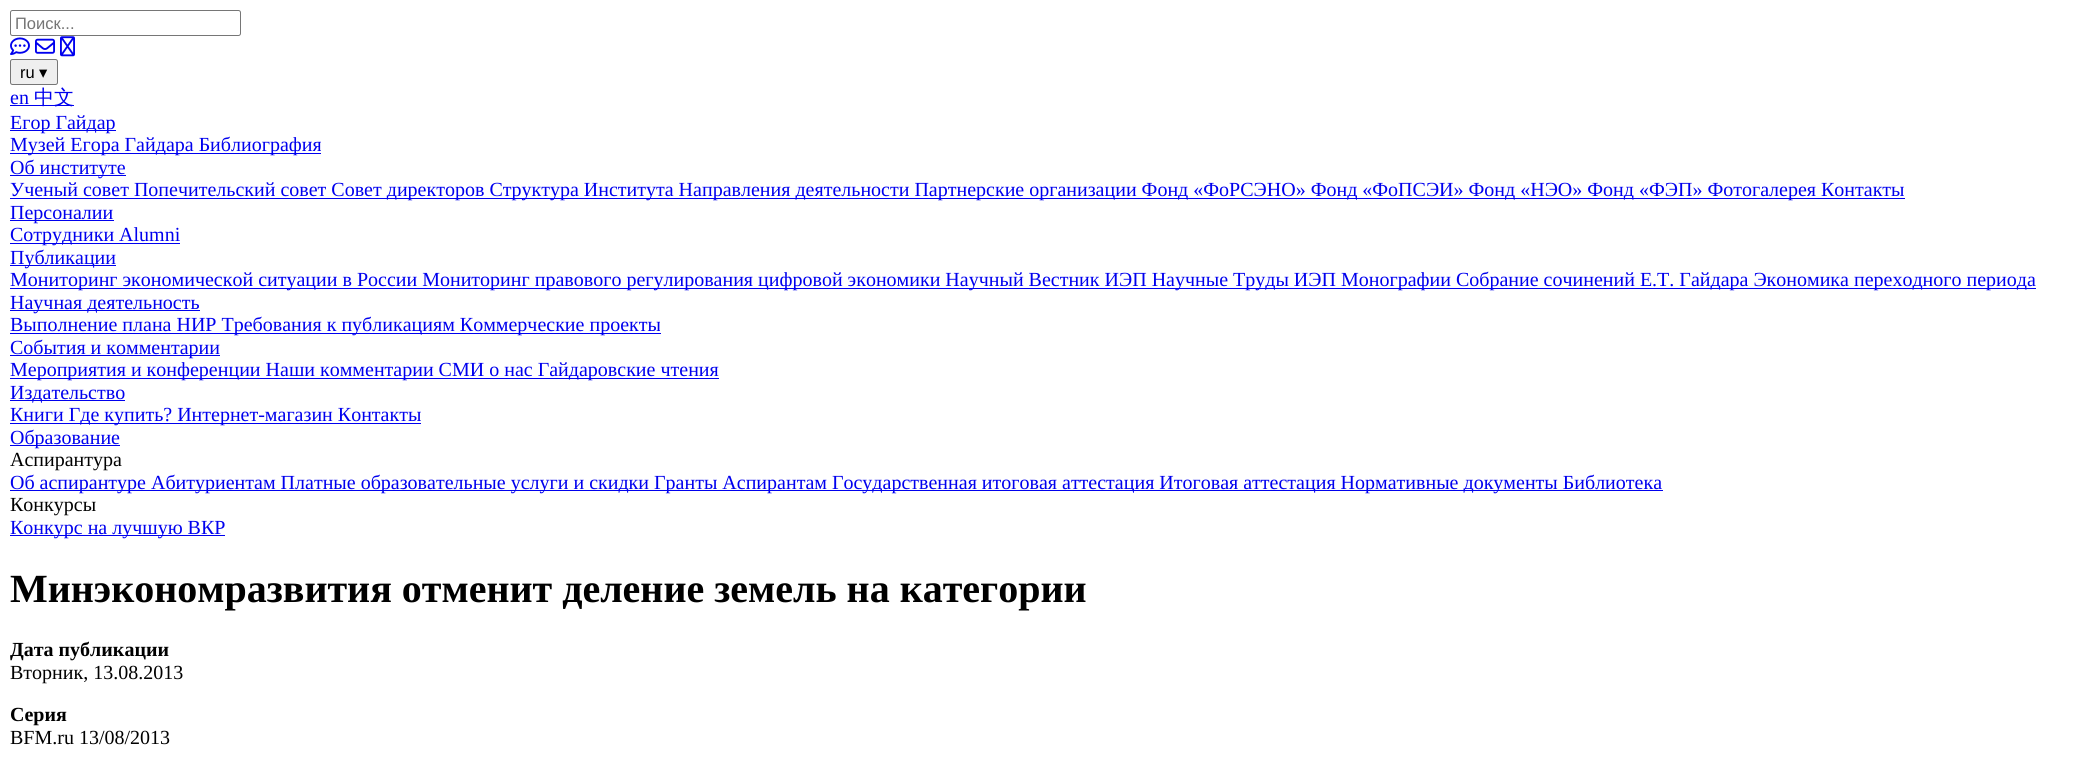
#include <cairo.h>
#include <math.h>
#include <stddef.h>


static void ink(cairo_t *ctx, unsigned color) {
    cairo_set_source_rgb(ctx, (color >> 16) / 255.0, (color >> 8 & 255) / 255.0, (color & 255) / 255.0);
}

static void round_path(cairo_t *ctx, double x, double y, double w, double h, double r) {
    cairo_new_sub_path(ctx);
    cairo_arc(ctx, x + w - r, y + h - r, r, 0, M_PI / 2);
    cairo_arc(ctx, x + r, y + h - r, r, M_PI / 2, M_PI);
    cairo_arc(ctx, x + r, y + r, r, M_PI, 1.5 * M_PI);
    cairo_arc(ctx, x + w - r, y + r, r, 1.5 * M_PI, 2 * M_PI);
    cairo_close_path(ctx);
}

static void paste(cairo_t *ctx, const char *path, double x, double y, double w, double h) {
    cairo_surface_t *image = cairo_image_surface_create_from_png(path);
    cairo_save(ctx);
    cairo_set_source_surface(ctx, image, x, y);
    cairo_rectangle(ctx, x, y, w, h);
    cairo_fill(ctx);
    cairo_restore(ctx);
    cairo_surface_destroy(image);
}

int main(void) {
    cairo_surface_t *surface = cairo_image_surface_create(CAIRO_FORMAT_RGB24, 2095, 768);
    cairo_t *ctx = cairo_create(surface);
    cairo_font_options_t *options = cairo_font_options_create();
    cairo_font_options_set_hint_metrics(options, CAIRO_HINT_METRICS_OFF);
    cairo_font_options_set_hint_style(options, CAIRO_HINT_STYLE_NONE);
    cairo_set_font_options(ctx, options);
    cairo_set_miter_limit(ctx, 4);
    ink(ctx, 0xFFFFFF);
    cairo_paint(ctx);
    round_path(ctx, 10.5, 10.5, 230, 25, 2);
    ink(ctx, 0x767676);
    cairo_set_line_width(ctx, 1);
    cairo_stroke(ctx);
    cairo_select_font_face(ctx, "Liberation Sans", CAIRO_FONT_SLANT_NORMAL, CAIRO_FONT_WEIGHT_NORMAL);
    cairo_set_font_size(ctx, 16.5);
    ink(ctx, 0x757575);
    cairo_move_to(ctx, 15, 29);
    cairo_show_text(ctx, "Поиск...");
    paste(ctx, "media/1.png", 10, 37, 20, 18);
    paste(ctx, "media/2.png", 35, 38, 20, 16);
    paste(ctx, "media/3.png", 60, 36, 15, 21);
    ink(ctx, 0xEFEFEF);
    round_path(ctx, 10.5, 59.5, 47, 25, 2);
    cairo_fill_preserve(ctx);
    ink(ctx, 0x767676);
    cairo_stroke(ctx);
    ink(ctx, 0x000000);
    cairo_move_to(ctx, 20, 78);
    cairo_show_text(ctx, "ru");
    cairo_select_font_face(ctx, "DejaVu Sans", CAIRO_FONT_SLANT_NORMAL, CAIRO_FONT_WEIGHT_NORMAL);
    cairo_move_to(ctx, 39, 78);
    cairo_show_text(ctx, "▾");
    cairo_select_font_face(ctx, "Liberation Serif", CAIRO_FONT_SLANT_NORMAL, CAIRO_FONT_WEIGHT_NORMAL);
    cairo_set_font_size(ctx, 20);
    ink(ctx, 0x0000EE);
    cairo_move_to(ctx, 10, 104);
    cairo_show_text(ctx, "en");
    cairo_rectangle(ctx, 10, 105, 64, 1);
    cairo_fill(ctx);
    cairo_select_font_face(ctx, "WenQuanYi Zen Hei Medium", CAIRO_FONT_SLANT_NORMAL, CAIRO_FONT_WEIGHT_NORMAL);
    cairo_move_to(ctx, 34, 104);
    cairo_show_text(ctx, "中文");
    cairo_rectangle(ctx, 10, 130, 106, 1);
    cairo_fill(ctx);
    cairo_select_font_face(ctx, "Liberation Serif", CAIRO_FONT_SLANT_NORMAL, CAIRO_FONT_WEIGHT_NORMAL);
    cairo_move_to(ctx, 10, 129);
    cairo_show_text(ctx, "Егор Гайдар");
    cairo_rectangle(ctx, 10, 153, 311, 1);
    cairo_fill(ctx);
    cairo_move_to(ctx, 10, 151);
    cairo_show_text(ctx, "Музей Егора Гайдара Библиография");
    cairo_rectangle(ctx, 10, 175, 116, 1);
    cairo_fill(ctx);
    cairo_move_to(ctx, 10, 174);
    cairo_show_text(ctx, "Об институте");
    cairo_rectangle(ctx, 10, 198, 1895, 1);
    cairo_fill(ctx);
    cairo_move_to(ctx, 10, 196);
    cairo_show_text(ctx, "Ученый совет Попечительский совет Совет директоров Структура Института Направления деятельности Партнерские организации Фонд «ФоРСЭНО» Фонд «ФоПСЭИ» Фонд «НЭО» Фонд «ФЭП» Фотогалерея Контакты");
    cairo_rectangle(ctx, 10, 220, 104, 1);
    cairo_fill(ctx);
    cairo_move_to(ctx, 10, 219);
    cairo_show_text(ctx, "Персоналии");
    cairo_rectangle(ctx, 10, 243, 170, 1);
    cairo_fill(ctx);
    cairo_move_to(ctx, 10, 241);
    cairo_show_text(ctx, "Сотрудники Alumni");
    cairo_rectangle(ctx, 10, 265, 106, 1);
    cairo_fill(ctx);
    cairo_move_to(ctx, 10, 264);
    cairo_show_text(ctx, "Публикации");
    cairo_rectangle(ctx, 10, 288, 2026, 1);
    cairo_fill(ctx);
    cairo_move_to(ctx, 10, 286);
    cairo_show_text(ctx, "Мониторинг экономической ситуации в России Мониторинг правового регулирования цифровой экономики Научный Вестник ИЭП Научные Труды ИЭП Монографии Собрание сочинений Е.Т. Гайдара Экономика переходного периода");
    cairo_rectangle(ctx, 10, 310, 190, 1);
    cairo_fill(ctx);
    cairo_move_to(ctx, 10, 309);
    cairo_show_text(ctx, "Научная деятельность");
    cairo_rectangle(ctx, 10, 333, 651, 1);
    cairo_fill(ctx);
    cairo_move_to(ctx, 10, 331);
    cairo_show_text(ctx, "Выполнение плана НИР Требования к публикациям Коммерческие проекты");
    cairo_rectangle(ctx, 10, 355, 210, 1);
    cairo_fill(ctx);
    cairo_move_to(ctx, 10, 354);
    cairo_show_text(ctx, "События и комментарии");
    cairo_rectangle(ctx, 10, 378, 709, 1);
    cairo_fill(ctx);
    cairo_move_to(ctx, 10, 376);
    cairo_show_text(ctx, "Мероприятия и конференции Наши комментарии СМИ о нас Гайдаровские чтения");
    cairo_rectangle(ctx, 10, 400, 115, 1);
    cairo_fill(ctx);
    cairo_move_to(ctx, 10, 399);
    cairo_show_text(ctx, "Издательство");
    cairo_rectangle(ctx, 10, 423, 411, 1);
    cairo_fill(ctx);
    cairo_move_to(ctx, 10, 421);
    cairo_show_text(ctx, "Книги Где купить? Интернет-магазин Контакты");
    cairo_rectangle(ctx, 10, 445, 110, 1);
    cairo_fill(ctx);
    cairo_move_to(ctx, 10, 444);
    cairo_show_text(ctx, "Образование");
    ink(ctx, 0x000000);
    cairo_move_to(ctx, 10, 466);
    cairo_show_text(ctx, "Аспирантура");
    ink(ctx, 0x0000EE);
    cairo_rectangle(ctx, 10, 490, 1653, 1);
    cairo_fill(ctx);
    cairo_move_to(ctx, 10, 489);
    cairo_show_text(ctx, "Об аспирантуре Абитуриентам Платные образовательные услуги и скидки Гранты Аспирантам Государственная итоговая аттестация Итоговая аттестация Нормативные документы Библиотека");
    ink(ctx, 0x000000);
    cairo_move_to(ctx, 10, 511);
    cairo_show_text(ctx, "Конкурсы");
    ink(ctx, 0x0000EE);
    cairo_rectangle(ctx, 10, 535, 215, 1);
    cairo_fill(ctx);
    cairo_move_to(ctx, 10, 534);
    cairo_show_text(ctx, "Конкурс на лучшую ВКР");
    cairo_select_font_face(ctx, "Liberation Serif", CAIRO_FONT_SLANT_NORMAL, CAIRO_FONT_WEIGHT_BOLD);
    cairo_set_font_size(ctx, 40);
    ink(ctx, 0x000000);
    cairo_move_to(ctx, 10, 602);
    cairo_show_text(ctx, "Минэкономразвития отменит деление земель на категории");
    cairo_set_font_size(ctx, 20);
    cairo_move_to(ctx, 10, 656);
    cairo_show_text(ctx, "Дата публикации");
    cairo_select_font_face(ctx, "Liberation Serif", CAIRO_FONT_SLANT_NORMAL, CAIRO_FONT_WEIGHT_NORMAL);
    cairo_move_to(ctx, 10, 679);
    cairo_show_text(ctx, "Вторник, 13.08.2013");
    cairo_select_font_face(ctx, "Liberation Serif", CAIRO_FONT_SLANT_NORMAL, CAIRO_FONT_WEIGHT_BOLD);
    cairo_move_to(ctx, 10, 721);
    cairo_show_text(ctx, "Серия");
    cairo_select_font_face(ctx, "Liberation Serif", CAIRO_FONT_SLANT_NORMAL, CAIRO_FONT_WEIGHT_NORMAL);
    cairo_move_to(ctx, 10, 744);
    cairo_show_text(ctx, "BFM.ru 13/08/2013");
    cairo_surface_write_to_png(surface, "image.png");
    cairo_font_options_destroy(options);
    cairo_destroy(ctx);
    cairo_surface_destroy(surface);
    return 0;
}
